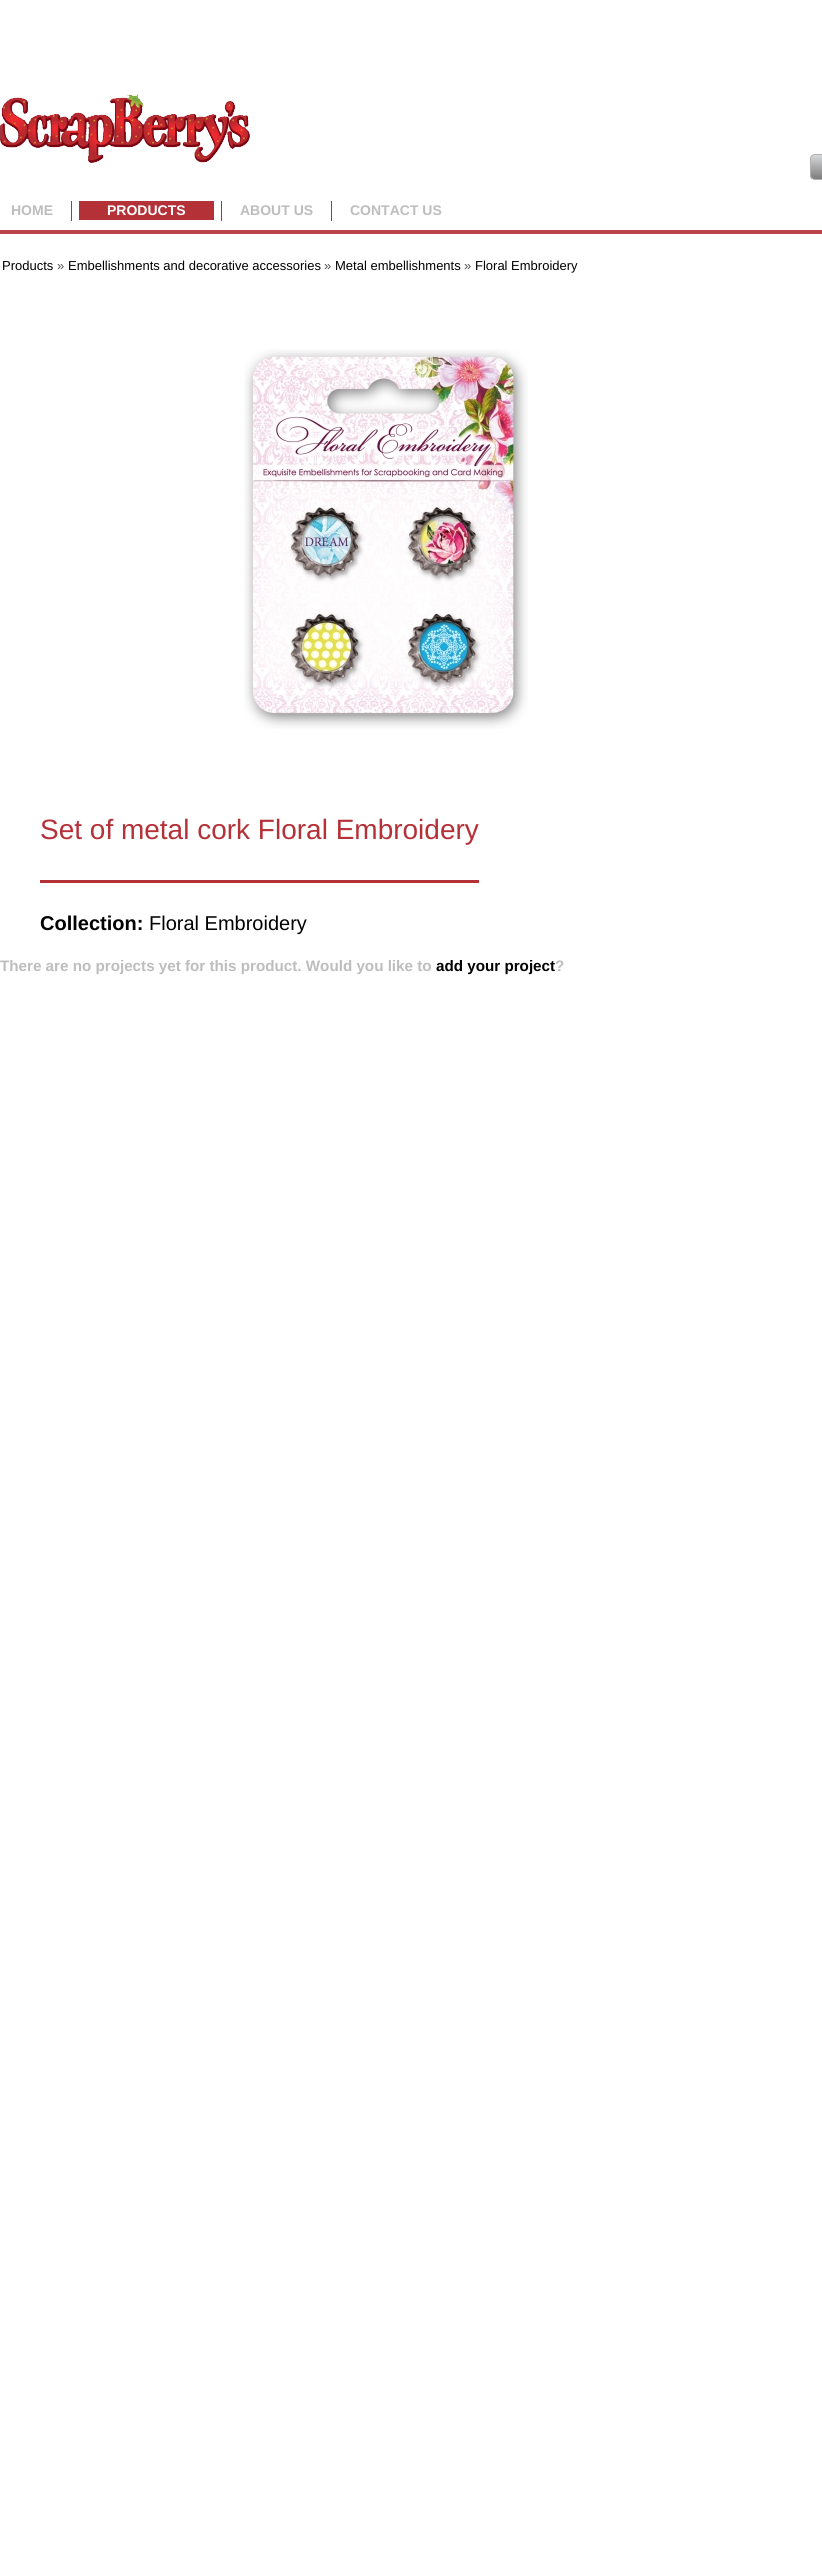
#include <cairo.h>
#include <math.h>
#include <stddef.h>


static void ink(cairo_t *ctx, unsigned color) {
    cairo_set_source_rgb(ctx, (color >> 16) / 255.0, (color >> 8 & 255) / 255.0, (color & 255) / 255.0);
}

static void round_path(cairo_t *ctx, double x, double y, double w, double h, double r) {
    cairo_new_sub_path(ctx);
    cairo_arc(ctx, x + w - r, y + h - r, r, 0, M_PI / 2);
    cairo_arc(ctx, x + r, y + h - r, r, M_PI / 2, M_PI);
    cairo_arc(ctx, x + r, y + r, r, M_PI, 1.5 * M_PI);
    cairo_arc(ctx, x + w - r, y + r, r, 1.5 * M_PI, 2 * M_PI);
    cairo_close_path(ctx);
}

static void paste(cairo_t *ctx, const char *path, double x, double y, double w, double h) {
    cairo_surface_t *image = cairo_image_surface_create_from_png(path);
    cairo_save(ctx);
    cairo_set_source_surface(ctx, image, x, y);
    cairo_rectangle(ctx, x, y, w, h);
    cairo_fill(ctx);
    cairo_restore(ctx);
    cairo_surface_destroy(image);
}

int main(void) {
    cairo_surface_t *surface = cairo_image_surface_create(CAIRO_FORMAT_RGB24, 822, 2562);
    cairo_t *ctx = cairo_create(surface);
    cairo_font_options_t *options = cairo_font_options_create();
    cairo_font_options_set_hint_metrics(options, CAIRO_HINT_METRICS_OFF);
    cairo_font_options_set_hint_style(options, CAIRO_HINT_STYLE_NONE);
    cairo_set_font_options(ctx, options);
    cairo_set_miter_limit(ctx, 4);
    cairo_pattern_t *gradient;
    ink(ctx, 0xFFFFFF);
    cairo_paint(ctx);
    paste(ctx, "media/1.png", 0, 94, 250, 69);
    cairo_save(ctx);
    round_path(ctx, 810, 154, 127, 26, 5);
    cairo_clip(ctx);
    gradient = cairo_pattern_create_linear(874, 155, 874, 179);
    cairo_pattern_add_color_stop_rgba(gradient, 0, 0.843, 0.847, 0.851, 1);
    cairo_pattern_add_color_stop_rgba(gradient, 1, 0.49, 0.49, 0.494, 1);
    cairo_set_source(ctx, gradient);
    cairo_pattern_destroy(gradient);
    cairo_rectangle(ctx, 810, 155, 12, 24);
    cairo_fill(ctx);
    cairo_restore(ctx);
    round_path(ctx, 810.5, 154.5, 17, 25, 4.5);
    ink(ctx, 0xB1B1B2);
    cairo_set_line_width(ctx, 1);
    cairo_stroke(ctx);
    ink(ctx, 0xBA4248);
    cairo_rectangle(ctx, 0, 230, 822, 4);
    cairo_fill(ctx);
    cairo_select_font_face(ctx, "Liberation Sans", CAIRO_FONT_SLANT_NORMAL, CAIRO_FONT_WEIGHT_BOLD);
    cairo_set_font_size(ctx, 14);
    ink(ctx, 0xBDBDBD);
    cairo_move_to(ctx, 11, 215);
    cairo_show_text(ctx, "HOME");
    ink(ctx, 0xB43138);
    cairo_rectangle(ctx, 71, 201, 1, 20);
    cairo_fill(ctx);
    cairo_rectangle(ctx, 79, 201, 135, 19);
    cairo_fill(ctx);
    ink(ctx, 0xFFFFFF);
    cairo_move_to(ctx, 107, 215);
    cairo_show_text(ctx, "PRODUCTS");
    ink(ctx, 0xB43138);
    cairo_rectangle(ctx, 221, 201, 1, 20);
    cairo_fill(ctx);
    ink(ctx, 0xBDBDBD);
    cairo_move_to(ctx, 240, 215);
    cairo_show_text(ctx, "ABOUT US");
    ink(ctx, 0xB43138);
    cairo_rectangle(ctx, 331, 201, 1, 20);
    cairo_fill(ctx);
    ink(ctx, 0xBDBDBD);
    cairo_move_to(ctx, 350, 215);
    cairo_show_text(ctx, "CONTACT US");
    cairo_select_font_face(ctx, "Liberation Sans", CAIRO_FONT_SLANT_NORMAL, CAIRO_FONT_WEIGHT_NORMAL);
    cairo_set_font_size(ctx, 13);
    ink(ctx, 0x000000);
    cairo_move_to(ctx, 2, 270);
    cairo_show_text(ctx, "Products");
    ink(ctx, 0x505050);
    cairo_move_to(ctx, 57, 270);
    cairo_show_text(ctx, "»");
    ink(ctx, 0x000000);
    cairo_move_to(ctx, 68, 270);
    cairo_show_text(ctx, "Embellishments and decorative accessories");
    ink(ctx, 0x505050);
    cairo_move_to(ctx, 324, 270);
    cairo_show_text(ctx, "»");
    ink(ctx, 0x000000);
    cairo_move_to(ctx, 335, 270);
    cairo_show_text(ctx, "Metal embellishments");
    ink(ctx, 0x505050);
    cairo_move_to(ctx, 464, 270);
    cairo_show_text(ctx, "»");
    ink(ctx, 0x000000);
    cairo_move_to(ctx, 475, 270);
    cairo_show_text(ctx, "Floral Embroidery");
    paste(ctx, "media/2.png", 244, 349, 284, 380);
    ink(ctx, 0xB43138);
    cairo_rectangle(ctx, 40, 880, 439, 3);
    cairo_fill(ctx);
    cairo_set_font_size(ctx, 28);
    cairo_move_to(ctx, 40, 839);
    cairo_show_text(ctx, "Set of metal cork Floral Embroidery");
    cairo_select_font_face(ctx, "Liberation Sans", CAIRO_FONT_SLANT_NORMAL, CAIRO_FONT_WEIGHT_BOLD);
    cairo_set_font_size(ctx, 20);
    ink(ctx, 0x000000);
    cairo_move_to(ctx, 40, 930);
    cairo_show_text(ctx, "Collection:");
    cairo_select_font_face(ctx, "Liberation Sans", CAIRO_FONT_SLANT_NORMAL, CAIRO_FONT_WEIGHT_NORMAL);
    cairo_move_to(ctx, 149, 930);
    cairo_show_text(ctx, "Floral Embroidery");
    cairo_select_font_face(ctx, "Liberation Sans", CAIRO_FONT_SLANT_NORMAL, CAIRO_FONT_WEIGHT_BOLD);
    cairo_set_font_size(ctx, 15.2);
    ink(ctx, 0xBDBDBD);
    cairo_move_to(ctx, 0, 971);
    cairo_show_text(ctx, "There are no projects yet for this product. Would you like to");
    ink(ctx, 0x000000);
    cairo_move_to(ctx, 436, 971);
    cairo_show_text(ctx, "add your project");
    ink(ctx, 0xBDBDBD);
    cairo_move_to(ctx, 555, 971);
    cairo_show_text(ctx, "?");
    cairo_surface_write_to_png(surface, "image.png");
    cairo_font_options_destroy(options);
    cairo_destroy(ctx);
    cairo_surface_destroy(surface);
    return 0;
}
